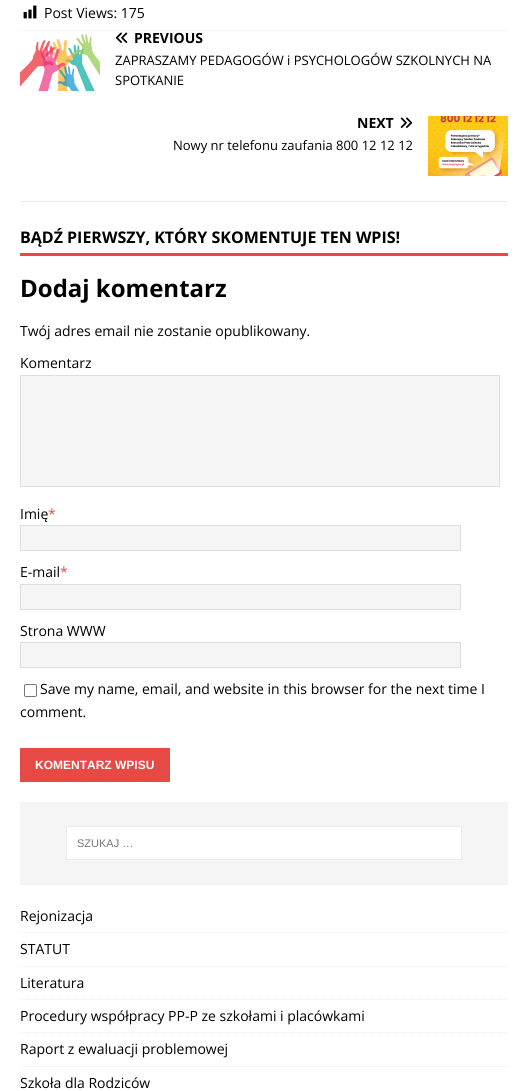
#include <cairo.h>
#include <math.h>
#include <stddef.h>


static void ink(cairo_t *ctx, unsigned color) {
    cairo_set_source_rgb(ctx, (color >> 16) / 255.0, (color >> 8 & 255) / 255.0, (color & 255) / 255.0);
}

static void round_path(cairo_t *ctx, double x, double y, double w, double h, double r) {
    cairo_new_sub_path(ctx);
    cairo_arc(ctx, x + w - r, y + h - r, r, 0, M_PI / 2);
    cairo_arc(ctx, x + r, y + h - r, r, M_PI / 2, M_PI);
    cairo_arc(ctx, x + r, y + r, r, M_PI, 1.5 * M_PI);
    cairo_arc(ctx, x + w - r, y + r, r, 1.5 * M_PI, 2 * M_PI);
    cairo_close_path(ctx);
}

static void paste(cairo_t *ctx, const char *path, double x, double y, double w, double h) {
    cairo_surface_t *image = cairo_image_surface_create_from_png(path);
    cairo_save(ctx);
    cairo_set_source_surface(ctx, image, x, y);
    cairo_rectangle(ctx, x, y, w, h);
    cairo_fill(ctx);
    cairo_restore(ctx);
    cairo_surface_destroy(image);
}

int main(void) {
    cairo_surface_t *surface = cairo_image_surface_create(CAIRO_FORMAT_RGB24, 528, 1091);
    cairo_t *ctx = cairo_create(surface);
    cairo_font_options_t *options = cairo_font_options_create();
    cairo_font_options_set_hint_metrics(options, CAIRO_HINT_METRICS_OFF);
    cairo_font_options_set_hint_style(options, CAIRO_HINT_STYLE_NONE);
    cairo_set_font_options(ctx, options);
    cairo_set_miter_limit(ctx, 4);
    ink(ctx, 0xFFFFFF);
    cairo_paint(ctx);
    cairo_new_path(ctx);
    cairo_move_to(ctx, 20, 30.5);
    cairo_line_to(ctx, 508, 30.5);
    ink(ctx, 0xEBEBEB);
    cairo_set_line_width(ctx, 1);
    cairo_set_dash(ctx, (double[]){1, 1}, 2, 0);
    cairo_stroke(ctx);
    paste(ctx, "media/1.png", 23, 5, 14, 14);
    cairo_select_font_face(ctx, "Open Sans", CAIRO_FONT_SLANT_NORMAL, CAIRO_FONT_WEIGHT_NORMAL);
    cairo_set_font_size(ctx, 14);
    ink(ctx, 0x000000);
    cairo_move_to(ctx, 44, 18);
    cairo_show_text(ctx, "Post Views: 175");
    ink(ctx, 0xEBEBEB);
    cairo_rectangle(ctx, 20, 201, 488, 1);
    cairo_fill(ctx);
    paste(ctx, "media/2.png", 20, 34, 80, 57);
    paste(ctx, "media/3.png", 115, 32, 13, 11);
    cairo_select_font_face(ctx, "Open Sans", CAIRO_FONT_SLANT_NORMAL, CAIRO_FONT_WEIGHT_BOLD);
    ink(ctx, 0x000000);
    cairo_move_to(ctx, 134, 43);
    cairo_show_text(ctx, "PREVIOUS");
    cairo_select_font_face(ctx, "Open Sans", CAIRO_FONT_SLANT_NORMAL, CAIRO_FONT_WEIGHT_NORMAL);
    cairo_set_font_size(ctx, 13);
    cairo_move_to(ctx, 115, 65);
    cairo_show_text(ctx, "ZAPRASZAMY PEDAGOGÓW i PSYCHOLOGÓW SZKOLNYCH NA");
    cairo_move_to(ctx, 115, 85);
    cairo_show_text(ctx, "SPOTKANIE");
    cairo_select_font_face(ctx, "Open Sans", CAIRO_FONT_SLANT_NORMAL, CAIRO_FONT_WEIGHT_BOLD);
    cairo_set_font_size(ctx, 14);
    cairo_move_to(ctx, 357, 128);
    cairo_show_text(ctx, "NEXT");
    paste(ctx, "media/4.png", 400, 117, 13, 11);
    paste(ctx, "media/5.png", 428, 116, 80, 60);
    cairo_select_font_face(ctx, "Open Sans", CAIRO_FONT_SLANT_NORMAL, CAIRO_FONT_WEIGHT_NORMAL);
    cairo_set_font_size(ctx, 13);
    cairo_move_to(ctx, 173, 150);
    cairo_show_text(ctx, "Nowy nr telefonu zaufania 800 12 12 12");
    ink(ctx, 0xE64946);
    cairo_rectangle(ctx, 20, 253, 488, 3);
    cairo_fill(ctx);
    cairo_select_font_face(ctx, "Open Sans", CAIRO_FONT_SLANT_NORMAL, CAIRO_FONT_WEIGHT_BOLD);
    cairo_set_font_size(ctx, 16);
    ink(ctx, 0x000000);
    cairo_move_to(ctx, 20, 243);
    cairo_show_text(ctx, "BĄDŹ PIERWSZY, KTÓRY SKOMENTUJE TEN WPIS!");
    cairo_set_font_size(ctx, 24);
    cairo_move_to(ctx, 20, 297);
    cairo_show_text(ctx, "Dodaj komentarz");
    cairo_select_font_face(ctx, "Open Sans", CAIRO_FONT_SLANT_NORMAL, CAIRO_FONT_WEIGHT_NORMAL);
    cairo_set_font_size(ctx, 14);
    cairo_move_to(ctx, 20, 336);
    cairo_show_text(ctx, "Twój adres email nie zostanie opublikowany.");
    cairo_move_to(ctx, 20, 368);
    cairo_show_text(ctx, "Komentarz");
    ink(ctx, 0xF5F5F5);
    cairo_rectangle(ctx, 20.5, 375.5, 479, 111);
    cairo_fill_preserve(ctx);
    ink(ctx, 0xDDDDDD);
    cairo_set_dash(ctx, NULL, 0, 0);
    cairo_stroke(ctx);
    ink(ctx, 0x000000);
    cairo_move_to(ctx, 20, 519);
    cairo_show_text(ctx, "Imię");
    ink(ctx, 0xE64946);
    cairo_move_to(ctx, 48, 519);
    cairo_show_text(ctx, "*");
    ink(ctx, 0xF5F5F5);
    cairo_rectangle(ctx, 20.5, 525.5, 440, 25);
    cairo_fill_preserve(ctx);
    ink(ctx, 0xDDDDDD);
    cairo_stroke(ctx);
    ink(ctx, 0x000000);
    cairo_move_to(ctx, 20, 577);
    cairo_show_text(ctx, "E-mail");
    ink(ctx, 0xE64946);
    cairo_move_to(ctx, 60, 577);
    cairo_show_text(ctx, "*");
    ink(ctx, 0xF5F5F5);
    cairo_rectangle(ctx, 20.5, 584.5, 440, 25);
    cairo_fill_preserve(ctx);
    ink(ctx, 0xDDDDDD);
    cairo_stroke(ctx);
    ink(ctx, 0x000000);
    cairo_move_to(ctx, 20, 636);
    cairo_show_text(ctx, "Strona WWW");
    ink(ctx, 0xF5F5F5);
    cairo_rectangle(ctx, 20.5, 642.5, 440, 25);
    cairo_fill_preserve(ctx);
    ink(ctx, 0xDDDDDD);
    cairo_stroke(ctx);
    round_path(ctx, 24.5, 684.5, 12, 12, 1.5);
    ink(ctx, 0x767676);
    cairo_stroke(ctx);
    ink(ctx, 0x000000);
    cairo_move_to(ctx, 40, 694);
    cairo_show_text(ctx, "Save my name, email, and website in this browser for the next time I");
    cairo_move_to(ctx, 20, 717);
    cairo_show_text(ctx, "comment.");
    ink(ctx, 0xE64946);
    cairo_rectangle(ctx, 20, 748, 150, 34);
    cairo_fill(ctx);
    cairo_select_font_face(ctx, "Liberation Sans", CAIRO_FONT_SLANT_NORMAL, CAIRO_FONT_WEIGHT_BOLD);
    cairo_set_font_size(ctx, 12);
    ink(ctx, 0xFFFFFF);
    cairo_move_to(ctx, 35, 769);
    cairo_show_text(ctx, "KOMENTARZ WPISU");
    ink(ctx, 0xF5F5F5);
    cairo_rectangle(ctx, 20, 802, 488, 83);
    cairo_fill(ctx);
    ink(ctx, 0xFFFFFF);
    cairo_rectangle(ctx, 66.5, 826.5, 395, 33);
    cairo_fill_preserve(ctx);
    ink(ctx, 0xEBEBEB);
    cairo_stroke(ctx);
    cairo_select_font_face(ctx, "Liberation Sans", CAIRO_FONT_SLANT_NORMAL, CAIRO_FONT_WEIGHT_NORMAL);
    cairo_set_font_size(ctx, 11);
    ink(ctx, 0x757575);
    cairo_move_to(ctx, 77, 847);
    cairo_show_text(ctx, "SZUKAJ …");
    cairo_new_path(ctx);
    cairo_move_to(ctx, 20, 932.5);
    cairo_line_to(ctx, 508, 932.5);
    ink(ctx, 0xEBEBEB);
    cairo_set_dash(ctx, (double[]){1, 1}, 2, 0);
    cairo_stroke(ctx);
    cairo_select_font_face(ctx, "Open Sans", CAIRO_FONT_SLANT_NORMAL, CAIRO_FONT_WEIGHT_NORMAL);
    cairo_set_font_size(ctx, 14);
    ink(ctx, 0x000000);
    cairo_move_to(ctx, 20, 921);
    cairo_show_text(ctx, "Rejonizacja");
    cairo_new_path(ctx);
    cairo_move_to(ctx, 20, 966.5);
    cairo_line_to(ctx, 508, 966.5);
    ink(ctx, 0xEBEBEB);
    cairo_stroke(ctx);
    ink(ctx, 0x000000);
    cairo_move_to(ctx, 20, 954);
    cairo_show_text(ctx, "STATUT");
    cairo_new_path(ctx);
    cairo_move_to(ctx, 20, 999.5);
    cairo_line_to(ctx, 508, 999.5);
    ink(ctx, 0xEBEBEB);
    cairo_stroke(ctx);
    ink(ctx, 0x000000);
    cairo_move_to(ctx, 20, 988);
    cairo_show_text(ctx, "Literatura");
    cairo_new_path(ctx);
    cairo_move_to(ctx, 20, 1032.5);
    cairo_line_to(ctx, 508, 1032.5);
    ink(ctx, 0xEBEBEB);
    cairo_stroke(ctx);
    ink(ctx, 0x000000);
    cairo_move_to(ctx, 20, 1021);
    cairo_show_text(ctx, "Procedury współpracy PP-P ze szkołami i placówkami");
    cairo_new_path(ctx);
    cairo_move_to(ctx, 20, 1066.5);
    cairo_line_to(ctx, 508, 1066.5);
    ink(ctx, 0xEBEBEB);
    cairo_stroke(ctx);
    ink(ctx, 0x000000);
    cairo_move_to(ctx, 20, 1054);
    cairo_show_text(ctx, "Raport z ewaluacji problemowej");
    cairo_move_to(ctx, 20, 1088);
    cairo_show_text(ctx, "Szkoła dla Rodziców");
    cairo_surface_write_to_png(surface, "image.png");
    cairo_font_options_destroy(options);
    cairo_destroy(ctx);
    cairo_surface_destroy(surface);
    return 0;
}
